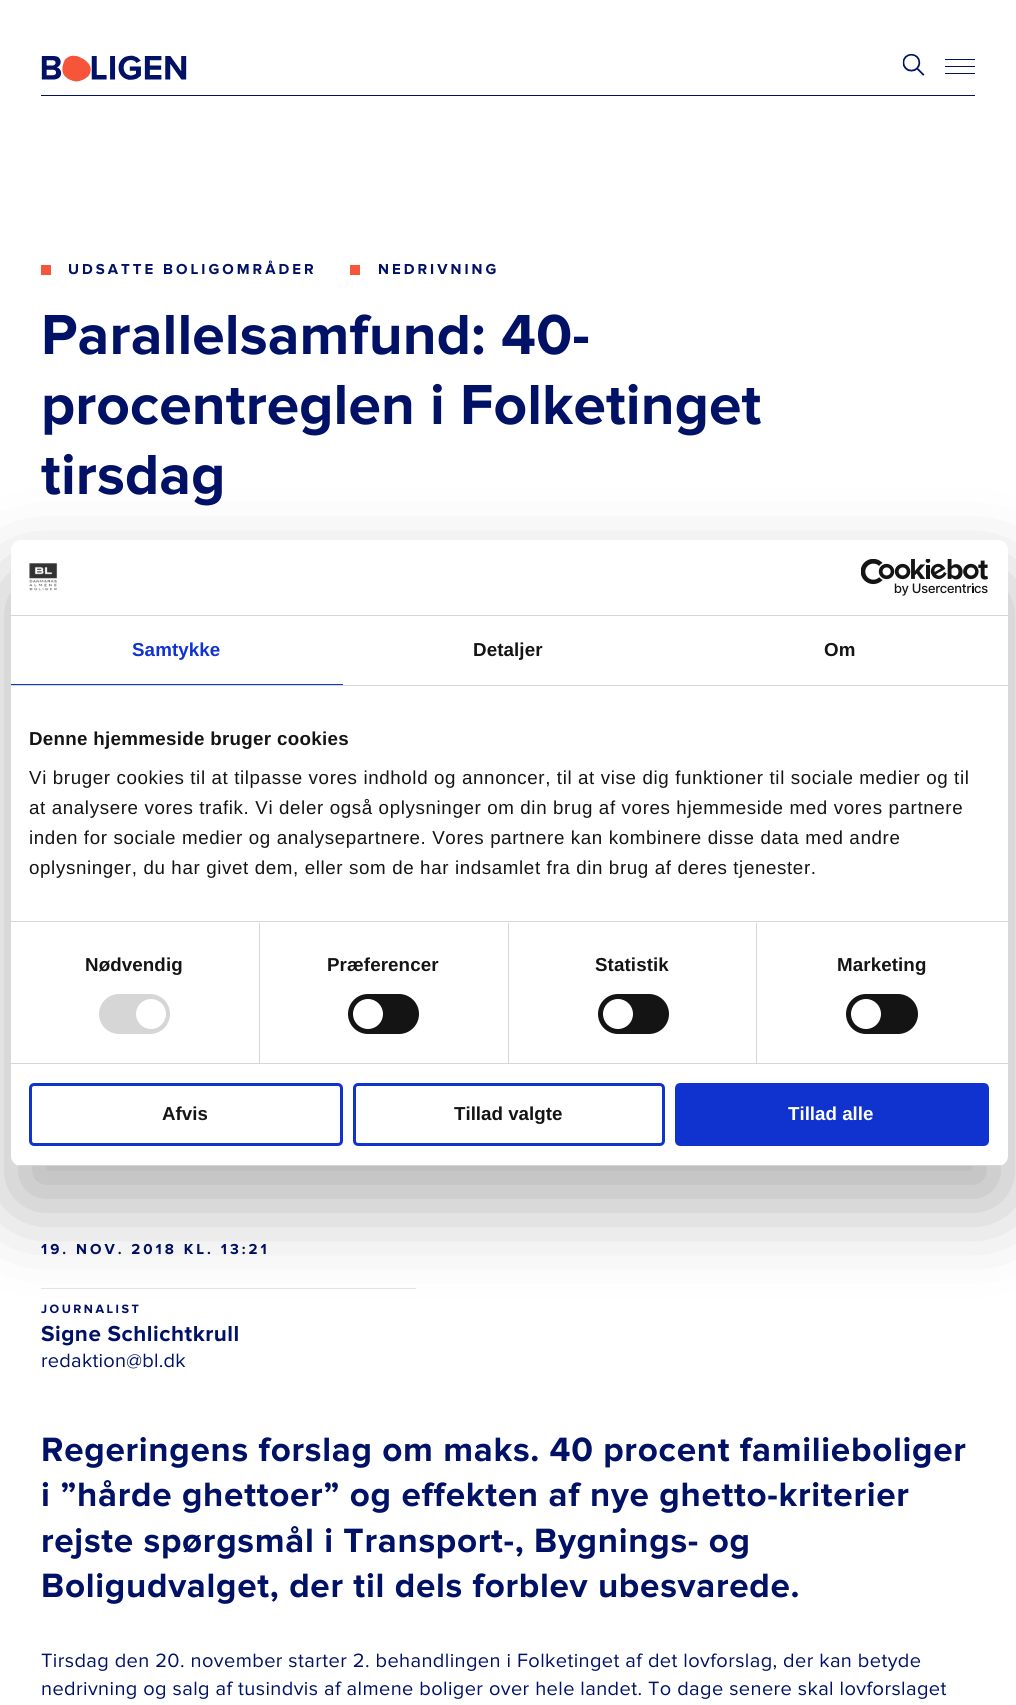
#include <cairo.h>
#include <math.h>
#include <stddef.h>

typedef struct { double x, y; const char *s; } line_t;
typedef struct { double x, y, w, h; unsigned color; } box_t;

static void ink(cairo_t *ctx, unsigned color) {
    cairo_set_source_rgb(ctx, (color >> 16) / 255.0, (color >> 8 & 255) / 255.0, (color & 255) / 255.0);
}

static void write_spaced(cairo_t *ctx, double x, double y, const char *s, double letter, double word) {
    cairo_move_to(ctx, x, y);
    while (*s) {
        char ch[5] = {0};
        int n = 0;
        do ch[n++] = *s++; while ((*s & 0xC0) == 0x80);
        cairo_show_text(ctx, ch);
        cairo_rel_move_to(ctx, letter + word * (*ch == ' '), 0);
    }
}

static void round_path(cairo_t *ctx, double x, double y, double w, double h, double r) {
    cairo_new_sub_path(ctx);
    cairo_arc(ctx, x + w - r, y + h - r, r, 0, M_PI / 2);
    cairo_arc(ctx, x + r, y + h - r, r, M_PI / 2, M_PI);
    cairo_arc(ctx, x + r, y + r, r, M_PI, 1.5 * M_PI);
    cairo_arc(ctx, x + w - r, y + r, r, 1.5 * M_PI, 2 * M_PI);
    cairo_close_path(ctx);
}

static void blur_box(cairo_t *ctx, double x, double y, double w, double h, double r, double blur, double alpha) {
    cairo_push_group_with_content(ctx, CAIRO_CONTENT_ALPHA);
    cairo_set_operator(ctx, CAIRO_OPERATOR_SOURCE);
    for (int i = 15; i >= -15 && fmin(w, h) + blur * i / 3 > 0; i -= 2) {
        double e = blur * i / 6;
        cairo_set_source_rgba(ctx, 0, 0, 0, alpha * erfc((i - 1) / 8.5) / 2);
        round_path(ctx, x - e, y - e, w + 2 * e, h + 2 * e, fmax(0, fmin(r + e + blur * .6, fmin(w, h) / 2 + e)));
        cairo_fill(ctx);
    }
    cairo_pattern_t *soft = cairo_pop_group(ctx);
    cairo_mask(ctx, soft);
    cairo_pattern_destroy(soft);
}

static void paste(cairo_t *ctx, const char *path, double x, double y, double w, double h) {
    cairo_surface_t *image = cairo_image_surface_create_from_png(path);
    cairo_save(ctx);
    cairo_set_source_surface(ctx, image, x, y);
    cairo_rectangle(ctx, x, y, w, h);
    cairo_fill(ctx);
    cairo_restore(ctx);
    cairo_surface_destroy(image);
}

int main(void) {
    cairo_surface_t *surface = cairo_image_surface_create(CAIRO_FORMAT_RGB24, 1016, 1705);
    cairo_t *ctx = cairo_create(surface);
    cairo_font_options_t *options = cairo_font_options_create();
    cairo_font_options_set_hint_metrics(options, CAIRO_HINT_METRICS_OFF);
    cairo_font_options_set_hint_style(options, CAIRO_HINT_STYLE_NONE);
    cairo_set_font_options(ctx, options);
    cairo_set_miter_limit(ctx, 4);
    ink(ctx, 0xFFFFFF);
    cairo_paint(ctx);
    ink(ctx, 0x001166);
    cairo_rectangle(ctx, 41, 95, 934, 1);
    cairo_fill(ctx);
    paste(ctx, "media/1.png", 41, 55, 146, 27);
    paste(ctx, "media/2.png", 902, 54, 23, 22);
    {
        static const box_t items[] = {
            {945, 59, 30, 1, 0x001166},
            {945, 66, 30, 1, 0x001166},
            {945, 73, 30, 1, 0x001166},
            {41, 265, 10, 10, 0xF6553A},
        };
        for (size_t i = 0; i < sizeof items / sizeof *items; i++) {
            ink(ctx, items[i].color);
            cairo_rectangle(ctx, items[i].x, items[i].y, items[i].w, items[i].h);
            cairo_fill(ctx);
        }
    }
    cairo_select_font_face(ctx, "Proxima Nova", CAIRO_FONT_SLANT_NORMAL, CAIRO_FONT_WEIGHT_BOLD);
    cairo_set_font_size(ctx, 15);
    ink(ctx, 0x001166);
    write_spaced(ctx, 68, 274, "UDSATTE BOLIGOMRÅDER", 3, 0);
    ink(ctx, 0xF6553A);
    cairo_rectangle(ctx, 350, 265, 10, 10);
    cairo_fill(ctx);
    ink(ctx, 0x001166);
    write_spaced(ctx, 378, 274, "NEDRIVNING", 3, 0);
    cairo_set_font_size(ctx, 58.5);
    {
        static const line_t items[] = {
            {41, 354, "Parallelsamfund: 40-"},
            {41, 424, "procentreglen i Folketinget"},
            {41, 494, "tirsdag"},
        };
        for (size_t i = 0; i < sizeof items / sizeof *items; i++) {
            write_spaced(ctx, items[i].x, items[i].y, items[i].s, 0.1, 0);
        }
    }
    cairo_set_font_size(ctx, 15);
    write_spaced(ctx, 41, 1254, "19. NOV. 2018 KL. 13:21", 3, 0);
    ink(ctx, 0xE3E3E8);
    cairo_rectangle(ctx, 41, 1288, 375, 1);
    cairo_fill(ctx);
    cairo_set_font_size(ctx, 12.5);
    ink(ctx, 0x001166);
    write_spaced(ctx, 41, 1313, "JOURNALIST", 2.5, 0);
    cairo_set_font_size(ctx, 22.5);
    write_spaced(ctx, 41, 1341, "Signe Schlichtkrull", 0.5, 0);
    cairo_select_font_face(ctx, "Proxima Nova", CAIRO_FONT_SLANT_NORMAL, CAIRO_FONT_WEIGHT_NORMAL);
    cairo_set_font_size(ctx, 20);
    write_spaced(ctx, 41, 1367, "redaktion@bl.dk", 0.25, 0);
    cairo_select_font_face(ctx, "Proxima Nova", CAIRO_FONT_SLANT_NORMAL, CAIRO_FONT_WEIGHT_BOLD);
    cairo_set_font_size(ctx, 35);
    {
        static const line_t items[] = {
            {41, 1461, "Regeringens forslag om maks. 40 procent familieboliger"},
            {41, 1506, "i ”hårde ghettoer” og effekten af nye ghetto-kriterier"},
            {41, 1552, "rejste spørgsmål i Transport-, Bygnings- og"},
            {41, 1597, "Boligudvalget, der til dels forblev ubesvarede."},
        };
        for (size_t i = 0; i < sizeof items / sizeof *items; i++) {
            write_spaced(ctx, items[i].x, items[i].y, items[i].s, 0.7, 0);
        }
    }
    cairo_select_font_face(ctx, "Proxima Nova", CAIRO_FONT_SLANT_NORMAL, CAIRO_FONT_WEIGHT_NORMAL);
    cairo_set_font_size(ctx, 20);
    write_spaced(ctx, 41, 1667, "Tirsdag den 20. november starter 2. behandlingen i Folketinget af det lovforslag, der kan betyde", 0.4, 0);
    write_spaced(ctx, 41, 1695, "nedrivning og salg af tusindvis af almene boliger over hele landet. To dage senere skal lovforslaget", 0.4, 0);
    ink(ctx, 0x000000);
    blur_box(ctx, 11, 580, 997, 626, 10, 42.5, 0.3);
    ink(ctx, 0xFFFFFF);
    round_path(ctx, 11, 540, 997, 626, 10);
    cairo_fill(ctx);
    ink(ctx, 0xD6D6D6);
    cairo_rectangle(ctx, 11, 615, 997, 1);
    cairo_fill(ctx);
    paste(ctx, "media/3.png", 29, 563, 29, 28);
    paste(ctx, "media/4.png", 861, 559, 127, 37);
    cairo_rectangle(ctx, 11, 685, 997, 1);
    cairo_fill(ctx);
    ink(ctx, 0x1032CF);
    cairo_rectangle(ctx, 11, 684, 332, 1);
    cairo_fill(ctx);
    cairo_select_font_face(ctx, "Liberation Sans", CAIRO_FONT_SLANT_NORMAL, CAIRO_FONT_WEIGHT_BOLD);
    cairo_set_font_size(ctx, 18.75);
    write_spaced(ctx, 132, 656, "Samtykke", 0.1, 0);
    ink(ctx, 0x141414);
    write_spaced(ctx, 473, 656, "Detaljer", 0.1, 0);
    write_spaced(ctx, 824, 656, "Om", 0.1, 0);
    ink(ctx, 0xD6D6D6);
    cairo_rectangle(ctx, 11, 921, 997, 1);
    cairo_fill(ctx);
    ink(ctx, 0x141414);
    write_spaced(ctx, 29, 745, "Denne hjemmeside bruger cookies", 0.3, 0);
    cairo_select_font_face(ctx, "Liberation Sans", CAIRO_FONT_SLANT_NORMAL, CAIRO_FONT_WEIGHT_NORMAL);
    {
        static const line_t items[] = {
            {29, 784, "Vi bruger cookies til at tilpasse vores indhold og annoncer, til at vise dig funktioner til sociale medier og til"},
            {29, 814, "at analysere vores trafik. Vi deler også oplysninger om din brug af vores hjemmeside med vores partnere"},
            {29, 844, "inden for sociale medier og analysepartnere. Vores partnere kan kombinere disse data med andre"},
            {29, 874, "oplysninger, du har givet dem, eller som de har indsamlet fra din brug af deres tjenester."},
        };
        for (size_t i = 0; i < sizeof items / sizeof *items; i++) {
            write_spaced(ctx, items[i].x, items[i].y, items[i].s, 0.62, 0);
        }
    }
    ink(ctx, 0xD6D6D6);
    cairo_rectangle(ctx, 11, 1063, 997, 1);
    cairo_fill(ctx);
    cairo_rectangle(ctx, 259, 923, 1, 140);
    cairo_fill(ctx);
    cairo_select_font_face(ctx, "Liberation Sans", CAIRO_FONT_SLANT_NORMAL, CAIRO_FONT_WEIGHT_BOLD);
    ink(ctx, 0x141414);
    write_spaced(ctx, 85, 971, "Nødvendig", 0.1, 0);
    ink(ctx, 0xD6D6D6);
    round_path(ctx, 99, 994, 71, 40, 20);
    cairo_fill(ctx);
    ink(ctx, 0xFFFFFF);
    cairo_arc(ctx, 151, 1014, 15, 0, 2 * M_PI);
    cairo_fill(ctx);
    ink(ctx, 0xD6D6D6);
    cairo_rectangle(ctx, 508, 923, 1, 140);
    cairo_fill(ctx);
    ink(ctx, 0x141414);
    write_spaced(ctx, 327, 971, "Præferencer", 0.1, 0);
    round_path(ctx, 348, 994, 71, 40, 20);
    cairo_fill(ctx);
    ink(ctx, 0xFFFFFF);
    cairo_arc(ctx, 368, 1014, 15, 0, 2 * M_PI);
    cairo_fill(ctx);
    ink(ctx, 0xD6D6D6);
    cairo_rectangle(ctx, 756, 923, 1, 140);
    cairo_fill(ctx);
    ink(ctx, 0x141414);
    write_spaced(ctx, 595, 971, "Statistik", 0.1, 0);
    round_path(ctx, 598, 994, 71, 40, 20);
    cairo_fill(ctx);
    ink(ctx, 0xFFFFFF);
    cairo_arc(ctx, 618, 1014, 15, 0, 2 * M_PI);
    cairo_fill(ctx);
    ink(ctx, 0x141414);
    write_spaced(ctx, 837, 971, "Marketing", 0.1, 0);
    round_path(ctx, 846, 994, 72, 40, 20);
    cairo_fill(ctx);
    ink(ctx, 0xFFFFFF);
    cairo_arc(ctx, 866, 1014, 15, 0, 2 * M_PI);
    cairo_fill(ctx);
    cairo_save(ctx);
    round_path(ctx, 11, 540, 997, 626, 10);
    cairo_clip(ctx);
    ink(ctx, 0xD6D6D6);
    cairo_rectangle(ctx, 11, 1165, 997, 1);
    cairo_fill(ctx);
    cairo_restore(ctx);
    round_path(ctx, 30.5, 1084.5, 311, 60, 3.5);
    ink(ctx, 0x1032CF);
    cairo_set_line_width(ctx, 3);
    cairo_stroke(ctx);
    ink(ctx, 0x141414);
    cairo_move_to(ctx, 162, 1120);
    cairo_show_text(ctx, "Afvis");
    round_path(ctx, 354.5, 1084.5, 309, 60, 3.5);
    ink(ctx, 0x1032CF);
    cairo_stroke(ctx);
    ink(ctx, 0x141414);
    cairo_move_to(ctx, 454, 1120);
    cairo_show_text(ctx, "Tillad valgte");
    ink(ctx, 0x1032CF);
    round_path(ctx, 676.5, 1084.5, 311, 60, 3.5);
    cairo_fill_preserve(ctx);
    cairo_stroke(ctx);
    ink(ctx, 0xFFFFFF);
    cairo_move_to(ctx, 788, 1120);
    cairo_show_text(ctx, "Tillad alle");
    cairo_surface_write_to_png(surface, "image.png");
    cairo_font_options_destroy(options);
    cairo_destroy(ctx);
    cairo_surface_destroy(surface);
    return 0;
}
